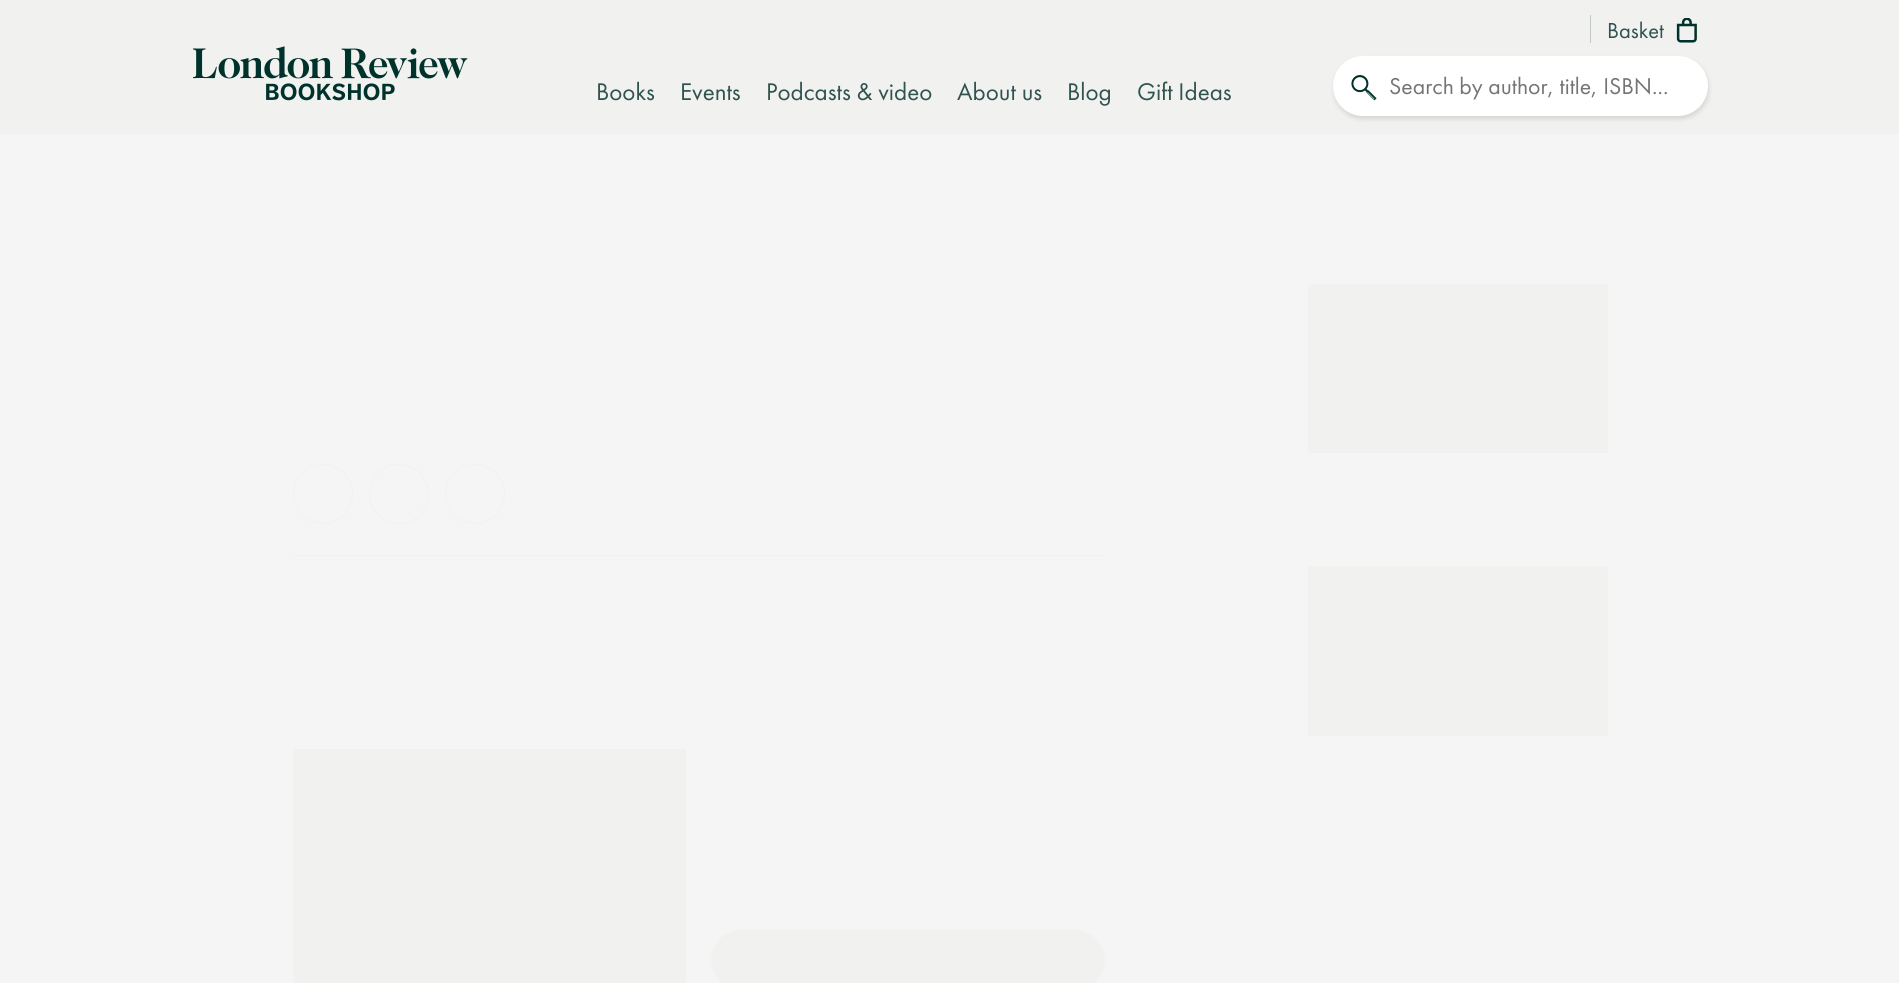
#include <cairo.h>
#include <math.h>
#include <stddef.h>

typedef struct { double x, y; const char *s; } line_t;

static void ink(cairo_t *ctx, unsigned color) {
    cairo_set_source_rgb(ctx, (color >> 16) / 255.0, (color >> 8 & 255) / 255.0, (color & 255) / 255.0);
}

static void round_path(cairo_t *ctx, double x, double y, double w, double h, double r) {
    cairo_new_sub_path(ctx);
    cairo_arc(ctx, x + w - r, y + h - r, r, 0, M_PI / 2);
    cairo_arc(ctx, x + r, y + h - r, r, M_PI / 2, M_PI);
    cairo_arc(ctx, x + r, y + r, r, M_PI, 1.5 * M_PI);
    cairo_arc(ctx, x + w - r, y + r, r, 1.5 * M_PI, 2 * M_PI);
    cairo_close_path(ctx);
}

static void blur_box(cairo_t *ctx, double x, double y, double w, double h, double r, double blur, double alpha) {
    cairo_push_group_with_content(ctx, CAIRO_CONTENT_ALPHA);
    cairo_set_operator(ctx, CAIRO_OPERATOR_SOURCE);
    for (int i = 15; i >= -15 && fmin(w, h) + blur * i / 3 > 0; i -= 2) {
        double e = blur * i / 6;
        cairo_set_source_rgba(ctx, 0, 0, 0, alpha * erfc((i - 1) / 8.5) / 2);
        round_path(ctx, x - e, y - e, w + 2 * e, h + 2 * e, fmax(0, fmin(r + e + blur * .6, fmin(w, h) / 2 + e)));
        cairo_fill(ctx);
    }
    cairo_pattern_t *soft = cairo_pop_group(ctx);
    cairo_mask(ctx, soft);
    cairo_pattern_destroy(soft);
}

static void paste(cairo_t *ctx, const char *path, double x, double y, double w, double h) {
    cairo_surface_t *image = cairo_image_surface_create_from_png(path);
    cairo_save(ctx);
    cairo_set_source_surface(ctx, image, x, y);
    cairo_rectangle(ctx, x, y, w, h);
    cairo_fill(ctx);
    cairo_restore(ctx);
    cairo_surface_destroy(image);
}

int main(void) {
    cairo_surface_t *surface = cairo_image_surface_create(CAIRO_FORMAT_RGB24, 1899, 983);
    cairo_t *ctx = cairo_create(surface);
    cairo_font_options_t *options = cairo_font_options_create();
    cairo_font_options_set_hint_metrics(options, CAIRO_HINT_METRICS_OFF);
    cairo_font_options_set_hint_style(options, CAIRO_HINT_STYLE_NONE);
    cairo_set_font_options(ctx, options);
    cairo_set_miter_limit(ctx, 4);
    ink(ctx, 0xF5F5F5);
    cairo_paint(ctx);
    ink(ctx, 0xF1F1F0);
    cairo_rectangle(ctx, 0, 0, 1899, 134);
    cairo_fill(ctx);
    ink(ctx, 0xC2CAC9);
    cairo_rectangle(ctx, 1590, 15, 1, 28);
    cairo_fill(ctx);
    cairo_select_font_face(ctx, "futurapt", CAIRO_FONT_SLANT_NORMAL, CAIRO_FONT_WEIGHT_NORMAL);
    cairo_set_font_size(ctx, 22.5);
    ink(ctx, 0x30534F);
    cairo_move_to(ctx, 1607, 38);
    cairo_show_text(ctx, "Basket");
    paste(ctx, "media/1.png", 1676, 18, 21, 25);
    paste(ctx, "media/2.png", 193, 46, 275, 55);
    cairo_set_font_size(ctx, 25);
    {
        static const line_t items[] = {
            {596, 100, "Books"},
            {680, 100, "Events"},
            {766, 100, "Podcasts & video"},
            {957, 100, "About us"},
            {1067, 100, "Blog"},
            {1137, 100, "Gift Ideas"},
        };
        for (size_t i = 0; i < sizeof items / sizeof *items; i++) {
            cairo_move_to(ctx, items[i].x, items[i].y);
            cairo_show_text(ctx, items[i].s);
        }
    }
    ink(ctx, 0x000000);
    blur_box(ctx, 1334, 59, 375, 60, 30, 2.5, 0.12);
    ink(ctx, 0xFFFFFF);
    round_path(ctx, 1333, 56, 375, 60, 30);
    cairo_fill(ctx);
    paste(ctx, "media/3.png", 1351, 75, 26, 26);
    cairo_set_font_size(ctx, 23.75);
    ink(ctx, 0x757575);
    cairo_move_to(ctx, 1389, 94);
    cairo_show_text(ctx, "Search by author, title, ISBN...");
    cairo_new_path(ctx);
    cairo_arc(ctx, 323, 494, 29.5, 0, 2 * M_PI);
    ink(ctx, 0xF1F1F0);
    cairo_set_line_width(ctx, 1);
    cairo_stroke(ctx);
    cairo_arc(ctx, 399, 494, 29.5, 0, 2 * M_PI);
    cairo_stroke(ctx);
    cairo_arc(ctx, 475, 494, 29.5, 0, 2 * M_PI);
    cairo_stroke(ctx);
    cairo_rectangle(ctx, 293, 555, 812, 1);
    cairo_fill(ctx);
    cairo_rectangle(ctx, 293, 749, 393, 234);
    cairo_fill(ctx);
    round_path(ctx, 711, 930, 394, 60, 30);
    cairo_fill(ctx);
    cairo_rectangle(ctx, 1308, 284, 300, 169);
    cairo_fill(ctx);
    cairo_rectangle(ctx, 1308, 566, 300, 170);
    cairo_fill(ctx);
    cairo_surface_write_to_png(surface, "image.png");
    cairo_font_options_destroy(options);
    cairo_destroy(ctx);
    cairo_surface_destroy(surface);
    return 0;
}
